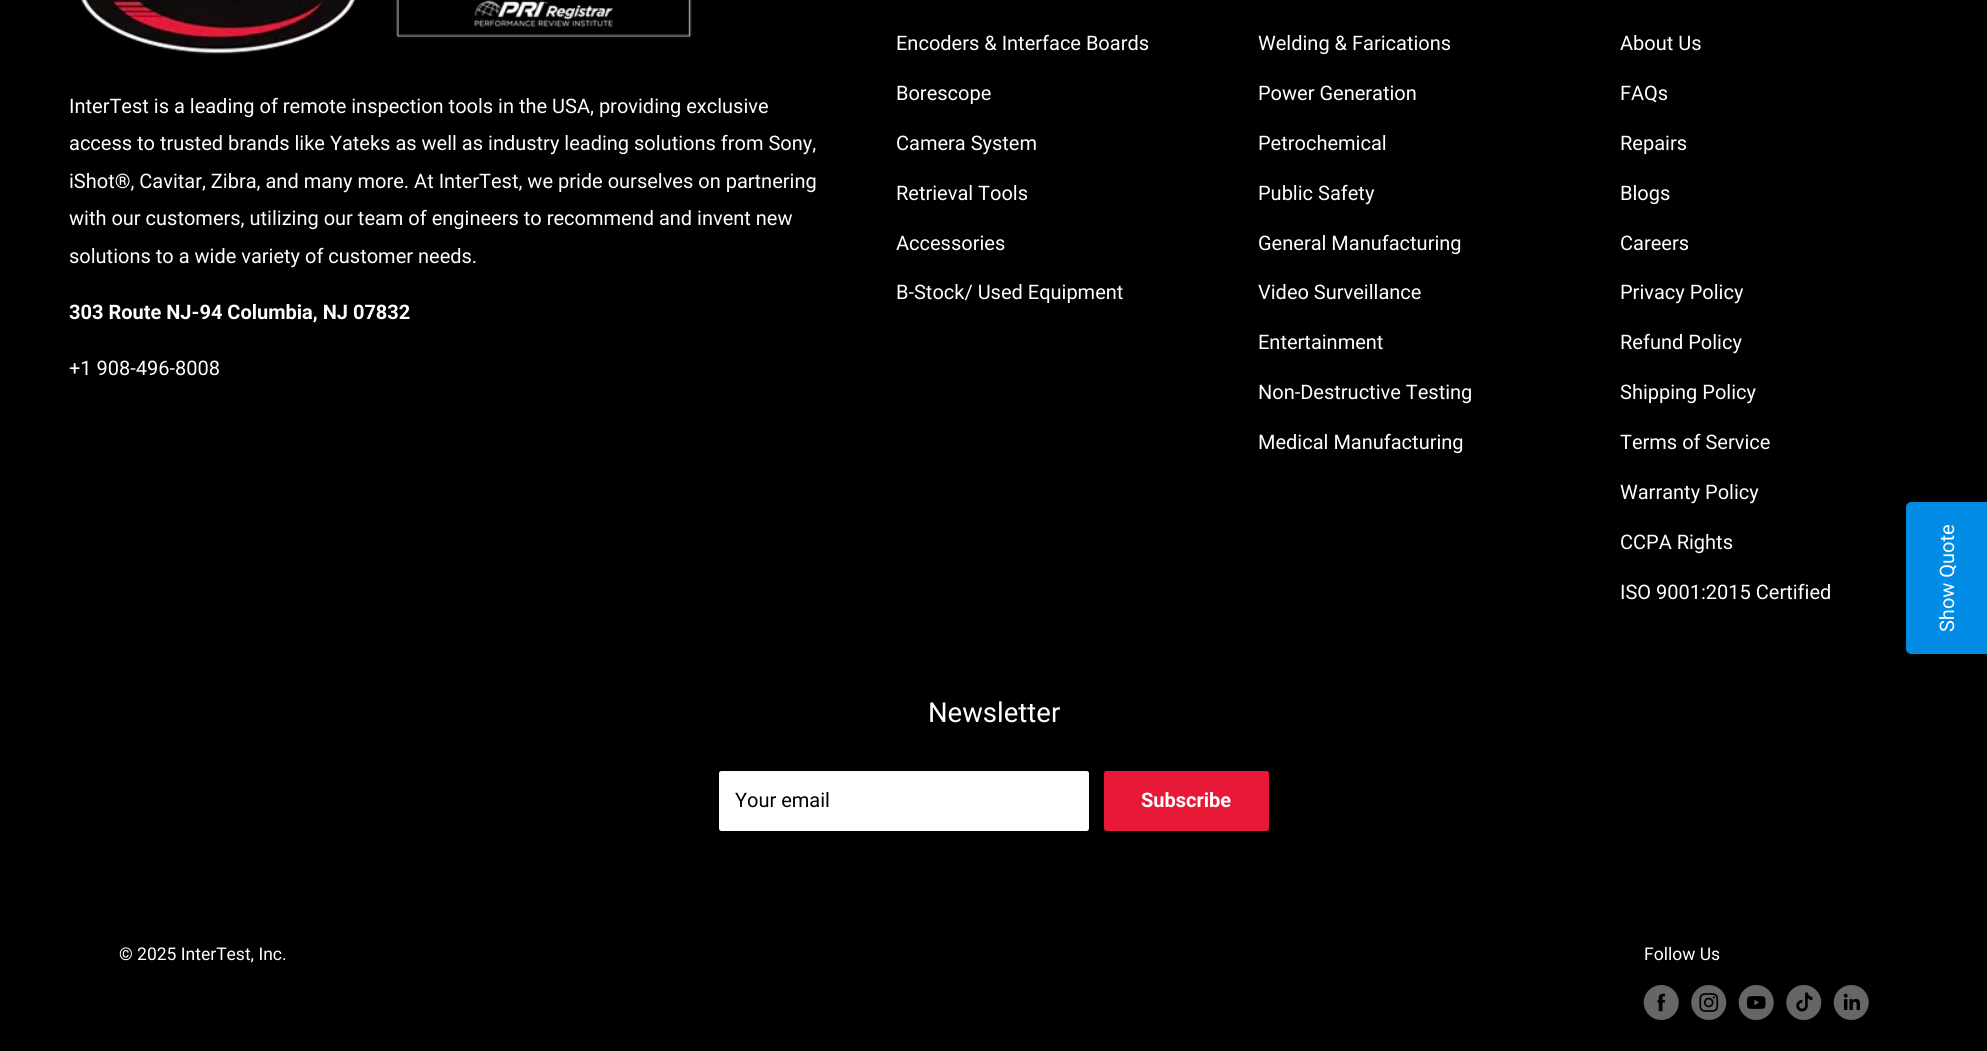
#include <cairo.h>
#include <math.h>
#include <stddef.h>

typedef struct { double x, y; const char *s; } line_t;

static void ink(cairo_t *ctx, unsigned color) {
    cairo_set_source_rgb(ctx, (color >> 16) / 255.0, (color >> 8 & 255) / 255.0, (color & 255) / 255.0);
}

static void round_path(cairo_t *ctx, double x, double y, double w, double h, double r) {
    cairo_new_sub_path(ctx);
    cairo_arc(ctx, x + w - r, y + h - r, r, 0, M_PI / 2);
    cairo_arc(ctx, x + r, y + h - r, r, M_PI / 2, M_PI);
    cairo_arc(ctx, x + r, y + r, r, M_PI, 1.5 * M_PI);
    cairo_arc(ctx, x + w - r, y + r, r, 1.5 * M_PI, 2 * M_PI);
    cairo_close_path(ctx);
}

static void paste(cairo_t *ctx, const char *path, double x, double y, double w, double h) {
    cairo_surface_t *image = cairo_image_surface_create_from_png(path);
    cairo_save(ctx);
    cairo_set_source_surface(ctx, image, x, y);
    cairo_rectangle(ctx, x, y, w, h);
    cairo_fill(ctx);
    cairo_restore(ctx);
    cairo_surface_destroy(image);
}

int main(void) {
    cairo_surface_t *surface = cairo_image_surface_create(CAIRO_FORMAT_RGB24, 1987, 1051);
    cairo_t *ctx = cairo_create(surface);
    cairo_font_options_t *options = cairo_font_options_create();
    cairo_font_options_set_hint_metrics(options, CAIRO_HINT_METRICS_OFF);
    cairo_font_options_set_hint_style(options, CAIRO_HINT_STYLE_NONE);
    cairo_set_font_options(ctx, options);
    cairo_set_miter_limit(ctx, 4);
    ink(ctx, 0x000000);
    cairo_paint(ctx);
    paste(ctx, "media/1.png", 81, 0, 275, 54);
    paste(ctx, "media/2.png", 396, 0, 296, 38);
    cairo_select_font_face(ctx, "Roboto", CAIRO_FONT_SLANT_NORMAL, CAIRO_FONT_WEIGHT_NORMAL);
    cairo_set_font_size(ctx, 20);
    ink(ctx, 0xFFFFFF);
    {
        static const line_t items[] = {
            {69, 113, "InterTest is a leading of remote inspection tools in the USA, providing exclusive"},
            {69, 150, "access to trusted brands like Yateks as well as industry leading solutions from Sony,"},
            {69, 188, "iShot®, Cavitar, Zibra, and many more. At InterTest, we pride ourselves on partnering"},
            {69, 225, "with our customers, utilizing our team of engineers to recommend and invent new"},
            {69, 263, "solutions to a wide variety of customer needs."},
        };
        for (size_t i = 0; i < sizeof items / sizeof *items; i++) {
            cairo_move_to(ctx, items[i].x, items[i].y);
            cairo_show_text(ctx, items[i].s);
        }
    }
    cairo_select_font_face(ctx, "Roboto", CAIRO_FONT_SLANT_NORMAL, CAIRO_FONT_WEIGHT_BOLD);
    cairo_move_to(ctx, 69, 319);
    cairo_show_text(ctx, "303 Route NJ-94 Columbia, NJ 07832");
    cairo_select_font_face(ctx, "Roboto", CAIRO_FONT_SLANT_NORMAL, CAIRO_FONT_WEIGHT_NORMAL);
    {
        static const line_t items[] = {
            {69, 375, "+1 908-496-8008"},
            {896, 50, "Encoders & Interface Boards"},
            {896, 100, "Borescope"},
            {896, 150, "Camera System"},
            {896, 200, "Retrieval Tools"},
            {896, 250, "Accessories"},
            {896, 299, "B-Stock/ Used Equipment"},
            {1258, 50, "Welding & Farications"},
            {1258, 100, "Power Generation"},
            {1258, 150, "Petrochemical"},
            {1258, 200, "Public Safety"},
            {1258, 250, "General Manufacturing"},
            {1258, 299, "Video Surveillance"},
            {1258, 349, "Entertainment"},
            {1258, 399, "Non-Destructive Testing"},
            {1258, 449, "Medical Manufacturing"},
            {1620, 50, "About Us"},
            {1620, 100, "FAQs"},
            {1620, 150, "Repairs"},
            {1620, 200, "Blogs"},
            {1620, 250, "Careers"},
            {1620, 299, "Privacy Policy"},
            {1620, 349, "Refund Policy"},
            {1620, 399, "Shipping Policy"},
            {1620, 449, "Terms of Service"},
            {1620, 499, "Warranty Policy"},
            {1620, 549, "CCPA Rights"},
            {1620, 599, "ISO 9001:2015 Certified"},
        };
        for (size_t i = 0; i < sizeof items / sizeof *items; i++) {
            cairo_move_to(ctx, items[i].x, items[i].y);
            cairo_show_text(ctx, items[i].s);
        }
    }
    ink(ctx, 0x008CE4);
    cairo_new_path(ctx);
    cairo_move_to(ctx, 1906, 649);
    cairo_line_to(ctx, 1906, 507);
    cairo_curve_to(ctx, 1906, 504, 1909, 502, 1911, 502);
    cairo_line_to(ctx, 1987, 502);
    cairo_line_to(ctx, 1987, 654);
    cairo_line_to(ctx, 1911, 654);
    cairo_curve_to(ctx, 1909, 654, 1906, 652, 1906, 649);
    cairo_close_path(ctx);
    cairo_fill(ctx);
    ink(ctx, 0xFFFFFF);
    cairo_save(ctx);
    cairo_translate(ctx, 1954, 632);
    cairo_rotate(ctx, -90 * M_PI / 180);
    cairo_move_to(ctx, 0, 0);
    cairo_show_text(ctx, "Show Quote");
    cairo_restore(ctx);
    cairo_set_font_size(ctx, 27.5);
    cairo_move_to(ctx, 928, 722);
    cairo_show_text(ctx, "Newsletter");
    round_path(ctx, 719, 771, 370, 60, 2.5);
    cairo_fill(ctx);
    cairo_set_source_rgba(ctx, 0.882, 0.89, 0.894, 0.25);
    cairo_new_path(ctx);
    cairo_move_to(ctx, 721, 772);
    cairo_line_to(ctx, 1086, 772);
    cairo_curve_to(ctx, 1088, 772, 1089, 774, 1089, 775);
    cairo_curve_to(ctx, 1089, 773, 1089, 771, 1086, 771);
    cairo_line_to(ctx, 722, 771);
    cairo_curve_to(ctx, 719, 771, 719, 773, 719, 775);
    cairo_curve_to(ctx, 719, 774, 720, 772, 721, 772);
    cairo_close_path(ctx);
    cairo_fill(ctx);
    cairo_set_font_size(ctx, 20);
    ink(ctx, 0x000000);
    cairo_move_to(ctx, 735, 807);
    cairo_show_text(ctx, "Your email");
    ink(ctx, 0xE81837);
    round_path(ctx, 1104, 771, 165, 60, 2.5);
    cairo_fill(ctx);
    cairo_select_font_face(ctx, "Roboto", CAIRO_FONT_SLANT_NORMAL, CAIRO_FONT_WEIGHT_BOLD);
    ink(ctx, 0xFFFFFF);
    cairo_move_to(ctx, 1141, 807);
    cairo_show_text(ctx, "Subscribe");
    cairo_select_font_face(ctx, "Roboto", CAIRO_FONT_SLANT_NORMAL, CAIRO_FONT_WEIGHT_NORMAL);
    cairo_set_font_size(ctx, 17.5);
    cairo_move_to(ctx, 119, 960);
    cairo_show_text(ctx, "© 2025 InterTest, Inc.");
    cairo_move_to(ctx, 1644, 960);
    cairo_show_text(ctx, "Follow Us");
    paste(ctx, "media/3.png", 1643, 985, 36, 35);
    paste(ctx, "media/4.png", 1691, 985, 36, 35);
    paste(ctx, "media/5.png", 1738, 985, 36, 35);
    paste(ctx, "media/6.png", 1786, 985, 36, 35);
    paste(ctx, "media/7.png", 1833, 985, 36, 35);
    cairo_surface_write_to_png(surface, "image.png");
    cairo_font_options_destroy(options);
    cairo_destroy(ctx);
    cairo_surface_destroy(surface);
    return 0;
}
